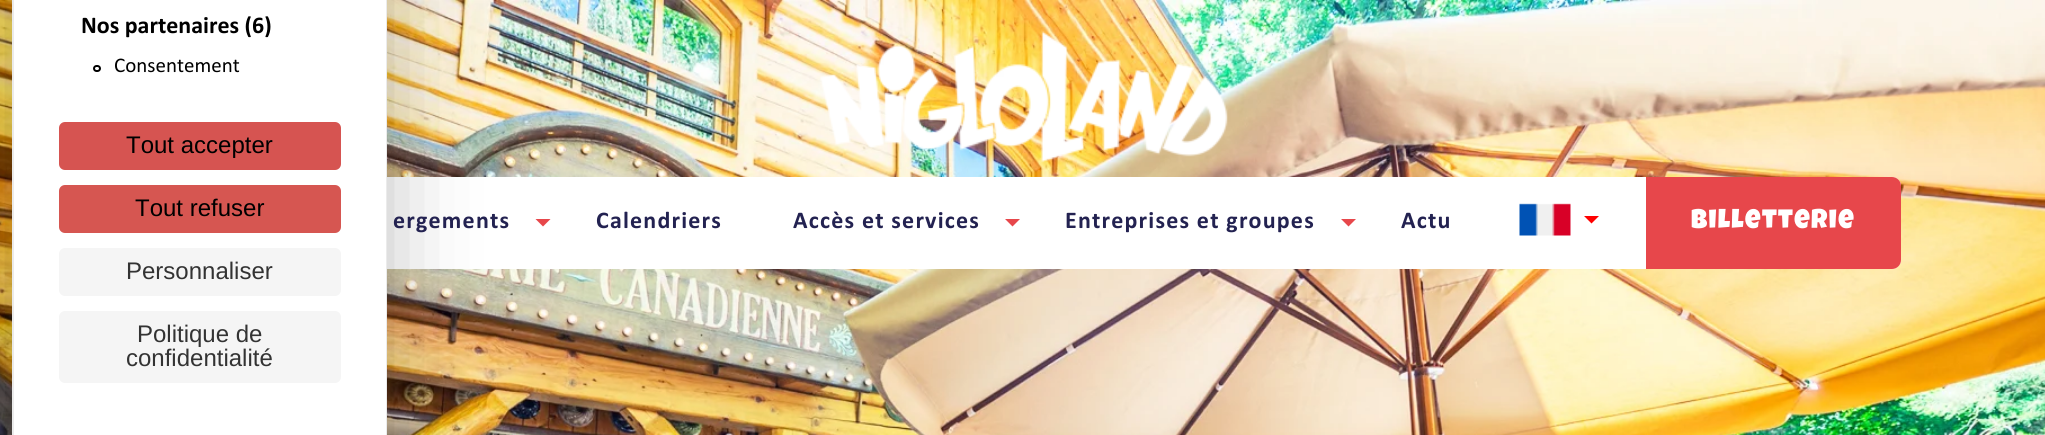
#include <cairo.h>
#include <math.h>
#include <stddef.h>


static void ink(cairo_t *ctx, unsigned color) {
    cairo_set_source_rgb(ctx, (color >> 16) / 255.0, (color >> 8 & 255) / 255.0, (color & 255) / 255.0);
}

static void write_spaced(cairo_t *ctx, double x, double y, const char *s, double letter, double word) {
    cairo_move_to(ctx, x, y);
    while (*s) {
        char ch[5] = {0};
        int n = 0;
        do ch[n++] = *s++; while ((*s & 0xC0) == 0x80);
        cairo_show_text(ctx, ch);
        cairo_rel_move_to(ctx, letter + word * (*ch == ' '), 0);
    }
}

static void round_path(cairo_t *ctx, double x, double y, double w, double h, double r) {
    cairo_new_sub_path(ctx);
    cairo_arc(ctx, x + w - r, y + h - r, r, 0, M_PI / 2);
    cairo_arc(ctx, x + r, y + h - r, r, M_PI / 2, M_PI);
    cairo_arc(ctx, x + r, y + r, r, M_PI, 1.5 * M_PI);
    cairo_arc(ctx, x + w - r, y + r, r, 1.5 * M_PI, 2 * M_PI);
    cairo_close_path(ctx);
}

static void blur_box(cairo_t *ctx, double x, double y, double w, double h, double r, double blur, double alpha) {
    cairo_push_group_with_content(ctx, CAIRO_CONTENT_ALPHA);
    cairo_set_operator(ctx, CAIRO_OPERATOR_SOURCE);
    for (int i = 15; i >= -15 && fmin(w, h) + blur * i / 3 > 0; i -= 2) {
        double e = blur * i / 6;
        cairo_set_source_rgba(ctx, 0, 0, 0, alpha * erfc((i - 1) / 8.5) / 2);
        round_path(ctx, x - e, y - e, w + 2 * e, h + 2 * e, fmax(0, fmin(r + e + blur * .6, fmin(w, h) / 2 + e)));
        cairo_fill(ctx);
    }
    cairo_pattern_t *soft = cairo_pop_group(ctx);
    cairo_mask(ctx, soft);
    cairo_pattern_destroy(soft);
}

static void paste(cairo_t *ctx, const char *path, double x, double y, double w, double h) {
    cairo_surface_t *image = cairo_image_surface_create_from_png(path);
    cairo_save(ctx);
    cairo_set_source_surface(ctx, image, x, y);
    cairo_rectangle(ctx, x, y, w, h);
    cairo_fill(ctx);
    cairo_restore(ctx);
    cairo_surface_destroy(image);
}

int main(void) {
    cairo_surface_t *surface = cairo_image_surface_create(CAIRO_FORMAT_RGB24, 2045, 435);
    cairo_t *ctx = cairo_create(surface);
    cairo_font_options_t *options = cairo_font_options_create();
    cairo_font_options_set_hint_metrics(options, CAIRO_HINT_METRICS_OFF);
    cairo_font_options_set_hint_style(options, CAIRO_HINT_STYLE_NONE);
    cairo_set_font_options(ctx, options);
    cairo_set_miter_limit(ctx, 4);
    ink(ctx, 0xFFFFFF);
    cairo_paint(ctx);
    paste(ctx, "media/1.png", 0, 0, 2045, 435);
    ink(ctx, 0xFFFFFF);
    round_path(ctx, 146, 177, 1755, 92, 9);
    cairo_fill(ctx);
    ink(ctx, 0x000000);
    blur_box(ctx, 12, -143, 375, 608, 8, 45, 0.25);
    ink(ctx, 0xFFFFFF);
    cairo_rectangle(ctx, 14, 0, 372, 435);
    cairo_fill(ctx);
    ink(ctx, 0xEBEBEB);
    cairo_set_fill_rule(ctx, CAIRO_FILL_RULE_EVEN_ODD);
    cairo_new_path(ctx);
    cairo_move_to(ctx, 20, -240);
    cairo_line_to(ctx, 380, -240);
    cairo_curve_to(ctx, 384, -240, 387, -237, 387, -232);
    cairo_line_to(ctx, 387, 435);
    cairo_line_to(ctx, 12, 435);
    cairo_line_to(ctx, 12, -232);
    cairo_curve_to(ctx, 12, -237, 15, -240, 20, -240);
    cairo_close_path(ctx);
    cairo_move_to(ctx, 20, -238);
    cairo_line_to(ctx, 380, -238);
    cairo_curve_to(ctx, 383, -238, 386, -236, 386, -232);
    cairo_line_to(ctx, 386, 435);
    cairo_line_to(ctx, 14, 435);
    cairo_line_to(ctx, 14, -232);
    cairo_curve_to(ctx, 14, -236, 16, -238, 20, -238);
    cairo_close_path(ctx);
    cairo_fill(ctx);
    cairo_select_font_face(ctx, "Calibri", CAIRO_FONT_SLANT_NORMAL, CAIRO_FONT_WEIGHT_BOLD);
    cairo_set_font_size(ctx, 24);
    ink(ctx, 0x000000);
    cairo_move_to(ctx, 81, 33);
    cairo_show_text(ctx, "Nos partenaires (6)");
    round_path(ctx, 94, 66, 6, 5, 2.5);
    cairo_stroke(ctx);
    cairo_select_font_face(ctx, "Calibri", CAIRO_FONT_SLANT_NORMAL, CAIRO_FONT_WEIGHT_NORMAL);
    cairo_set_font_size(ctx, 21);
    cairo_move_to(ctx, 114, 72);
    cairo_show_text(ctx, "Consentement");
    ink(ctx, 0xD65451);
    round_path(ctx, 59, 122, 282, 48, 6);
    cairo_fill(ctx);
    cairo_select_font_face(ctx, "Liberation Sans", CAIRO_FONT_SLANT_NORMAL, CAIRO_FONT_WEIGHT_NORMAL);
    cairo_set_font_size(ctx, 24);
    ink(ctx, 0x000000);
    cairo_move_to(ctx, 126, 153);
    cairo_show_text(ctx, "Tout accepter");
    ink(ctx, 0xD65651);
    round_path(ctx, 59, 185, 282, 48, 6);
    cairo_fill(ctx);
    ink(ctx, 0x000000);
    cairo_move_to(ctx, 135, 216);
    cairo_show_text(ctx, "Tout refuser");
    ink(ctx, 0xF5F5F5);
    round_path(ctx, 59, 248, 282, 48, 6);
    cairo_fill(ctx);
    ink(ctx, 0x333333);
    cairo_move_to(ctx, 126, 279);
    cairo_show_text(ctx, "Personnaliser");
    ink(ctx, 0xF5F5F5);
    round_path(ctx, 59, 311, 282, 72, 6);
    cairo_fill(ctx);
    ink(ctx, 0x333333);
    cairo_move_to(ctx, 137, 342);
    cairo_show_text(ctx, "Politique de");
    cairo_move_to(ctx, 126, 366);
    cairo_show_text(ctx, "confidentialité");
    paste(ctx, "media/2.png", 820, 31, 408, 132);
    cairo_select_font_face(ctx, "Calibri", CAIRO_FONT_SLANT_NORMAL, CAIRO_FONT_WEIGHT_BOLD);
    ink(ctx, 0x232251);
    write_spaced(ctx, 393, 228, "ergements", 1.2, 0);
    ink(ctx, 0xE7474B);
    cairo_set_fill_rule(ctx, CAIRO_FILL_RULE_WINDING);
    cairo_new_path(ctx);
    cairo_move_to(ctx, 535.5, 219);
    cairo_line_to(ctx, 550.5, 219);
    cairo_line_to(ctx, 543, 226.5);
    cairo_close_path(ctx);
    cairo_fill(ctx);
    ink(ctx, 0x232251);
    write_spaced(ctx, 596, 228, "Calendriers", 1.2, 0);
    write_spaced(ctx, 793, 228, "Accès et services", 1.2, 0);
    ink(ctx, 0xE7474B);
    cairo_new_path(ctx);
    cairo_move_to(ctx, 1005, 219);
    cairo_line_to(ctx, 1020, 219);
    cairo_line_to(ctx, 1012.5, 226.5);
    cairo_close_path(ctx);
    cairo_fill(ctx);
    ink(ctx, 0x232251);
    write_spaced(ctx, 1065, 228, "Entreprises et groupes", 1.2, 0);
    ink(ctx, 0xE7474B);
    cairo_new_path(ctx);
    cairo_move_to(ctx, 1341, 219);
    cairo_line_to(ctx, 1356, 219);
    cairo_line_to(ctx, 1348.5, 226.5);
    cairo_close_path(ctx);
    cairo_fill(ctx);
    ink(ctx, 0x232251);
    write_spaced(ctx, 1401, 228, "Actu", 1.2, 0);
    paste(ctx, "media/3.png", 1519, 203, 52, 33);
    ink(ctx, 0xFF0000);
    cairo_new_path(ctx);
    cairo_move_to(ctx, 1584, 216);
    cairo_line_to(ctx, 1599, 216);
    cairo_line_to(ctx, 1591.5, 223.5);
    cairo_close_path(ctx);
    cairo_fill(ctx);
    ink(ctx, 0xE7474B);
    cairo_new_path(ctx);
    cairo_move_to(ctx, 1646, 177);
    cairo_line_to(ctx, 1892, 177);
    cairo_curve_to(ctx, 1897, 177, 1901, 181, 1901, 186);
    cairo_line_to(ctx, 1901, 260);
    cairo_curve_to(ctx, 1901, 265, 1897, 269, 1892, 269);
    cairo_line_to(ctx, 1646, 269);
    cairo_close_path(ctx);
    cairo_fill(ctx);
    cairo_select_font_face(ctx, "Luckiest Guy", CAIRO_FONT_SLANT_NORMAL, CAIRO_FONT_WEIGHT_NORMAL);
    cairo_set_font_size(ctx, 27);
    ink(ctx, 0xFFFFFF);
    write_spaced(ctx, 1691, 228, "Billetterie", 1.4, 0);
    cairo_surface_write_to_png(surface, "image.png");
    cairo_font_options_destroy(options);
    cairo_destroy(ctx);
    cairo_surface_destroy(surface);
    return 0;
}
